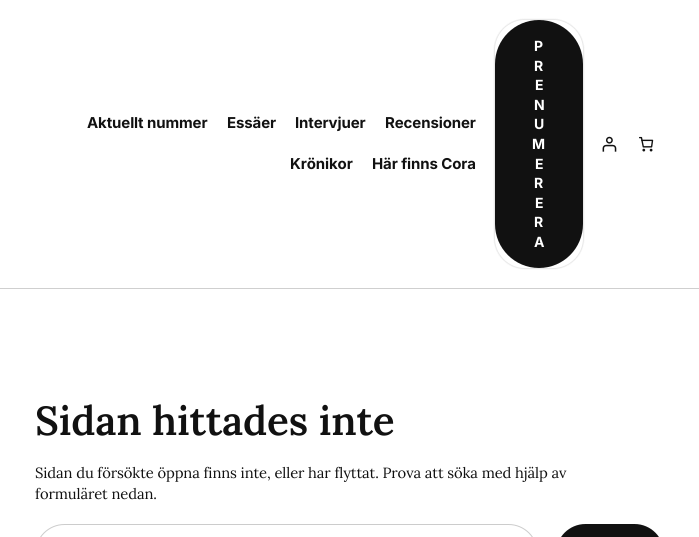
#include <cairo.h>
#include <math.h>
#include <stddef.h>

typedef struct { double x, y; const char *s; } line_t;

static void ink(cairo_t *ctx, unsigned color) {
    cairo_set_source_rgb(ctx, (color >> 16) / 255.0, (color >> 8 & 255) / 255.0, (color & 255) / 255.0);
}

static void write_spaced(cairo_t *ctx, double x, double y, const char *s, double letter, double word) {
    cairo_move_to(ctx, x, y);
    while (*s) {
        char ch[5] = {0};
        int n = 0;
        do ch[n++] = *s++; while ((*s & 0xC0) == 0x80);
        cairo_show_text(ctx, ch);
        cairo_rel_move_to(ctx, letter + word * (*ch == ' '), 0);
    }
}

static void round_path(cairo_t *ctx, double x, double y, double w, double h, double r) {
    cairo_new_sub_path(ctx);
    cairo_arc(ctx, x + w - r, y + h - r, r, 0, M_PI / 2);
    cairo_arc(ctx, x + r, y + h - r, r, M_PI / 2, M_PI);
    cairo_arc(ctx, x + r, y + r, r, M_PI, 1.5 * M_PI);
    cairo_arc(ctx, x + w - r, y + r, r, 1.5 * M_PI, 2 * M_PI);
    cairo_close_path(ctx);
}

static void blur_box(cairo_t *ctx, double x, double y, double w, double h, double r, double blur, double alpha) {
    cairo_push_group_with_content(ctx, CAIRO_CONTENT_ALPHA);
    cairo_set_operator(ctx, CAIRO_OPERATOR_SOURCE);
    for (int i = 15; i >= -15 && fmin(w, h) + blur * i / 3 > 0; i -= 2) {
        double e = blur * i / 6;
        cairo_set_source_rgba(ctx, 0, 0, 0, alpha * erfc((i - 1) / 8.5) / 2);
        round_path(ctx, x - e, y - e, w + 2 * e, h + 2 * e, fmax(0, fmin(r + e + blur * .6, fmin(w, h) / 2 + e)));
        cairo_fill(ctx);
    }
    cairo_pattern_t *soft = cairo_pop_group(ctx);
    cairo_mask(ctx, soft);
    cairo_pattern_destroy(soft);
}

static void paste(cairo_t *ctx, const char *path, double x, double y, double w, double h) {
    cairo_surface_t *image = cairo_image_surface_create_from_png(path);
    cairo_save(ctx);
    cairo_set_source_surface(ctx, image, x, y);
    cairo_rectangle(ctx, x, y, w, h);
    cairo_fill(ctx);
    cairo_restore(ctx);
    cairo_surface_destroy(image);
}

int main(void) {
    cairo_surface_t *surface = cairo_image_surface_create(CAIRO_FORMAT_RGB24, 699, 537);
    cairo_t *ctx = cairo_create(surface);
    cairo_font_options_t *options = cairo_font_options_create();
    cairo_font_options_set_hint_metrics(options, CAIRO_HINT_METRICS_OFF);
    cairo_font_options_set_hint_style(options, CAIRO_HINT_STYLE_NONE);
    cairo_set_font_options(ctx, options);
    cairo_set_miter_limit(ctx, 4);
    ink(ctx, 0xFFFFFF);
    cairo_paint(ctx);
    ink(ctx, 0xCFCFCF);
    cairo_rectangle(ctx, 0, 288, 699, 1);
    cairo_fill(ctx);
    cairo_select_font_face(ctx, "Inter", CAIRO_FONT_SLANT_NORMAL, CAIRO_FONT_WEIGHT_BOLD);
    cairo_set_font_size(ctx, 15);
    ink(ctx, 0x111111);
    {
        static const line_t items[] = {
            {87, 128, "Aktuellt nummer"},
            {227, 128, "Essäer"},
            {295, 128, "Intervjuer"},
            {385, 128, "Recensioner"},
            {290, 169, "Krönikor"},
            {372, 169, "Här finns Cora"},
        };
        for (size_t i = 0; i < sizeof items / sizeof *items; i++) {
            write_spaced(ctx, items[i].x, items[i].y, items[i].s, -0.1, 0);
        }
    }
    cairo_save(ctx);
    cairo_set_fill_rule(ctx, CAIRO_FILL_RULE_EVEN_ODD);
    cairo_new_path(ctx);
    cairo_move_to(ctx, 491, 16);
    cairo_line_to(ctx, 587, 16);
    cairo_line_to(ctx, 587, 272);
    cairo_line_to(ctx, 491, 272);
    cairo_close_path(ctx);
    cairo_move_to(ctx, 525, 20);
    cairo_line_to(ctx, 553, 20);
    cairo_curve_to(ctx, 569.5, 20, 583, 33.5, 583, 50);
    cairo_line_to(ctx, 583, 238);
    cairo_curve_to(ctx, 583, 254.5, 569.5, 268, 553, 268);
    cairo_line_to(ctx, 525, 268);
    cairo_curve_to(ctx, 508.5, 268, 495, 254.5, 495, 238);
    cairo_line_to(ctx, 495, 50);
    cairo_curve_to(ctx, 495, 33.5, 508.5, 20, 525, 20);
    cairo_close_path(ctx);
    cairo_clip(ctx);
    ink(ctx, 0x000000);
    blur_box(ctx, 494, 19, 90, 250, 31, 0.5, 0.1);
    cairo_restore(ctx);
    round_path(ctx, 495, 20, 88, 248, 44);
    cairo_fill(ctx);
    cairo_set_font_size(ctx, 14);
    ink(ctx, 0xFFFFFF);
    {
        static const line_t items[] = {
            {534, 51, "P"},
            {534, 71, "R"},
            {535, 90, "E"},
            {534, 110, "N"},
            {534, 129, "U"},
            {532, 149, "M"},
            {535, 169, "E"},
            {534, 188, "R"},
            {535, 208, "E"},
            {534, 227, "R"},
            {534, 247, "A"},
        };
        for (size_t i = 0; i < sizeof items / sizeof *items; i++) {
            write_spaced(ctx, items[i].x, items[i].y, items[i].s, -0.1, 0);
        }
    }
    paste(ctx, "media/1.png", 602, 136, 15, 16);
    paste(ctx, "media/2.png", 639, 136, 15, 16);
    cairo_select_font_face(ctx, "Lora SemiBold", CAIRO_FONT_SLANT_NORMAL, CAIRO_FONT_WEIGHT_NORMAL);
    cairo_set_font_size(ctx, 40.5);
    ink(ctx, 0x111111);
    write_spaced(ctx, 35, 435, "Sidan hittades inte", -0.1, 0);
    cairo_select_font_face(ctx, "Lora", CAIRO_FONT_SLANT_NORMAL, CAIRO_FONT_WEIGHT_NORMAL);
    cairo_set_font_size(ctx, 14.75);
    write_spaced(ctx, 35, 478, "Sidan du försökte öppna finns inte, eller har flyttat. Prova att söka med hjälp av", -0.1, 0);
    write_spaced(ctx, 35, 499, "formuläret nedan.", -0.1, 0);
    round_path(ctx, 35.5, 524.5, 502, 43, 29);
    ink(ctx, 0xCCCCCC);
    cairo_set_line_width(ctx, 1);
    cairo_stroke(ctx);
    ink(ctx, 0x111111);
    round_path(ctx, 556, 524, 108, 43, 29.5);
    cairo_fill(ctx);
    cairo_surface_write_to_png(surface, "image.png");
    cairo_font_options_destroy(options);
    cairo_destroy(ctx);
    cairo_surface_destroy(surface);
    return 0;
}
